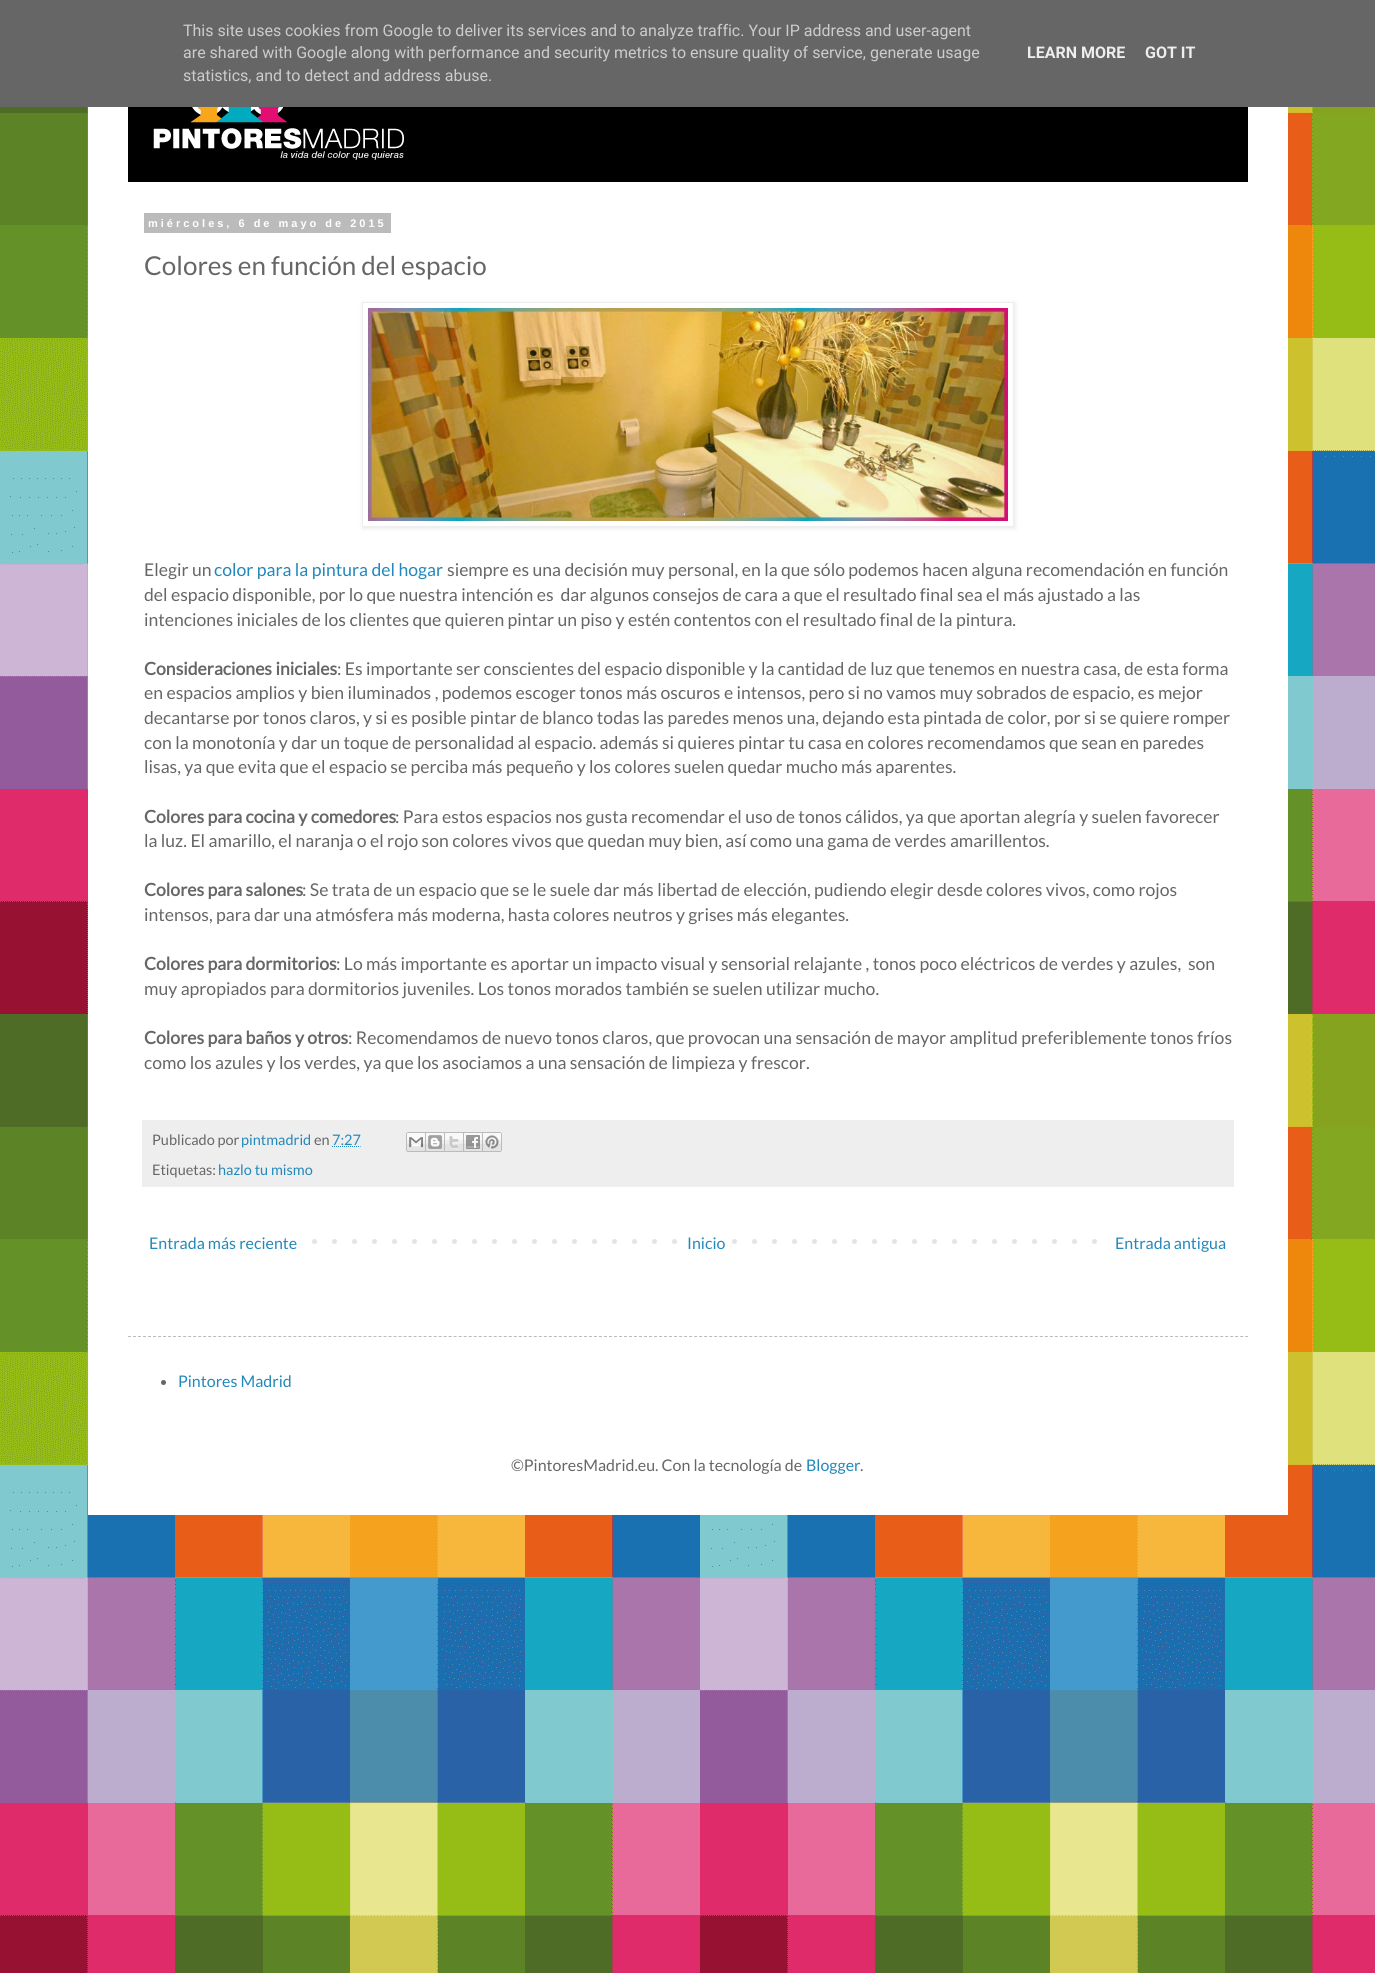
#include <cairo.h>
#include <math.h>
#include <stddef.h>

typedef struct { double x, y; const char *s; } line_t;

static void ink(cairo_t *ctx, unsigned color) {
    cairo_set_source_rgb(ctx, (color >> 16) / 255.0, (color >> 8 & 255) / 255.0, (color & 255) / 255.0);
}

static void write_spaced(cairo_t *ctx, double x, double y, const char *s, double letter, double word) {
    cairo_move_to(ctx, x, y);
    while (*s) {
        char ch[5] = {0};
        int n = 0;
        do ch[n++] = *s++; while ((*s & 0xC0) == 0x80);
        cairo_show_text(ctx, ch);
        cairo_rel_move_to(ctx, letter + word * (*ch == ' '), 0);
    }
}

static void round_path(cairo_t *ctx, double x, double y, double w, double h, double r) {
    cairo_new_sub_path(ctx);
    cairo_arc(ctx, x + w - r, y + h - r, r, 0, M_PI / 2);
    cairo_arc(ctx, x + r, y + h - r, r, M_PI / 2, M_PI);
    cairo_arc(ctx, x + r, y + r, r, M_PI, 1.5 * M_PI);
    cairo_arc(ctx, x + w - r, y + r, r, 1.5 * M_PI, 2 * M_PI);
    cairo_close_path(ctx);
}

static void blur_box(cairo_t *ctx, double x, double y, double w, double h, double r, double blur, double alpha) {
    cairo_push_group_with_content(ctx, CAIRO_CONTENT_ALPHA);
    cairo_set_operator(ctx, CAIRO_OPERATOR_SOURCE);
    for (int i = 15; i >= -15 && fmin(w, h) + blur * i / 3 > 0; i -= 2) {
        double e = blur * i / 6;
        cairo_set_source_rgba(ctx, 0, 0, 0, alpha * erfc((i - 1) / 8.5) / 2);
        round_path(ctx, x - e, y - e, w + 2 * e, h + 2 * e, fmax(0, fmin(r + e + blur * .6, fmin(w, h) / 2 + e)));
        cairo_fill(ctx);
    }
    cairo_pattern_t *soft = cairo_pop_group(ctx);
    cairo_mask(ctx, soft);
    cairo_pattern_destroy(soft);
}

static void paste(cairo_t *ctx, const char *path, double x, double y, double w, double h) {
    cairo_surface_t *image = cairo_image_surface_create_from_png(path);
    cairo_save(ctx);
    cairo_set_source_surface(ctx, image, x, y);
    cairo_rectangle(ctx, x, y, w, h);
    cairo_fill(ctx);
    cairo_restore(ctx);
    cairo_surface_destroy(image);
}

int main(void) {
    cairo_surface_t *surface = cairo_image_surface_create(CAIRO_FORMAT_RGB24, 1375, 1973);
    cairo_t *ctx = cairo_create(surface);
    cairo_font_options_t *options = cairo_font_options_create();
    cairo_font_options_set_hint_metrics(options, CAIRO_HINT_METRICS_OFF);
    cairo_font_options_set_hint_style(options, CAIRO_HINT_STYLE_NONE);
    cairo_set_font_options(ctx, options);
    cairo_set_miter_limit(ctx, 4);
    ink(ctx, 0xFFFFFF);
    cairo_paint(ctx);
    paste(ctx, "media/1.png", 0, 107, 1375, 1866);
    ink(ctx, 0x666666);
    cairo_rectangle(ctx, 0, 0, 1375, 107);
    cairo_fill(ctx);
    cairo_select_font_face(ctx, "Roboto", CAIRO_FONT_SLANT_NORMAL, CAIRO_FONT_WEIGHT_NORMAL);
    cairo_set_font_size(ctx, 16);
    ink(ctx, 0xCCCCCC);
    {
        static const line_t items[] = {
            {183, 36, "This site uses cookies from Google to deliver its services and to analyze traffic. Your IP address and user-agent"},
            {183, 58, "are shared with Google along with performance and security metrics to ensure quality of service, generate usage"},
            {183, 81, "statistics, and to detect and address abuse."},
        };
        for (size_t i = 0; i < sizeof items / sizeof *items; i++) {
            cairo_move_to(ctx, items[i].x, items[i].y);
            cairo_show_text(ctx, items[i].s);
        }
    }
    cairo_select_font_face(ctx, "Roboto", CAIRO_FONT_SLANT_NORMAL, CAIRO_FONT_WEIGHT_BOLD);
    ink(ctx, 0xEEEEEE);
    cairo_move_to(ctx, 1027, 58);
    cairo_show_text(ctx, "LEARN MORE");
    cairo_move_to(ctx, 1145, 58);
    cairo_show_text(ctx, "GOT IT");
    ink(ctx, 0xFFFFFF);
    cairo_rectangle(ctx, 88, 107, 1200, 1408);
    cairo_fill(ctx);
    ink(ctx, 0x000000);
    cairo_rectangle(ctx, 128, 107, 1120, 75);
    cairo_fill(ctx);
    paste(ctx, "media/2.png", 153, 107, 251, 53);
    ink(ctx, 0xBBBBBB);
    cairo_rectangle(ctx, 144, 213, 247, 20);
    cairo_fill(ctx);
    cairo_select_font_face(ctx, "Liberation Sans", CAIRO_FONT_SLANT_NORMAL, CAIRO_FONT_WEIGHT_BOLD);
    cairo_set_font_size(ctx, 11);
    ink(ctx, 0xFFFFFF);
    write_spaced(ctx, 148, 227, "miércoles, 6 de mayo de 2015", 3, 0);
    cairo_select_font_face(ctx, "Lato", CAIRO_FONT_SLANT_NORMAL, CAIRO_FONT_WEIGHT_NORMAL);
    cairo_set_font_size(ctx, 26);
    ink(ctx, 0x666666);
    cairo_move_to(ctx, 144, 275);
    cairo_show_text(ctx, "Colores en función del espacio");
    cairo_save(ctx);
    cairo_set_fill_rule(ctx, CAIRO_FILL_RULE_EVEN_ODD);
    cairo_new_path(ctx);
    cairo_move_to(ctx, 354, 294);
    cairo_line_to(ctx, 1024, 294);
    cairo_line_to(ctx, 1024, 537);
    cairo_line_to(ctx, 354, 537);
    cairo_close_path(ctx);
    cairo_move_to(ctx, 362, 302);
    cairo_line_to(ctx, 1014, 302);
    cairo_line_to(ctx, 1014, 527);
    cairo_line_to(ctx, 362, 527);
    cairo_close_path(ctx);
    cairo_clip(ctx);
    ink(ctx, 0x000000);
    blur_box(ctx, 363, 303, 652, 225, 0, 2.5, 0.1);
    cairo_restore(ctx);
    cairo_rectangle(ctx, 362.5, 302.5, 651, 224);
    ink(ctx, 0xEEEEEE);
    cairo_set_line_width(ctx, 1);
    cairo_stroke(ctx);
    paste(ctx, "media/3.png", 368, 308, 640, 213);
    cairo_set_font_size(ctx, 17.6);
    ink(ctx, 0x666666);
    cairo_move_to(ctx, 144, 576);
    cairo_show_text(ctx, "Elegir un");
    ink(ctx, 0x2288BB);
    cairo_move_to(ctx, 214, 576);
    cairo_show_text(ctx, "color para la pintura del hogar");
    ink(ctx, 0x666666);
    {
        static const line_t items[] = {
            {447, 576, "siempre es una decisión muy personal, en la que sólo podemos hacen alguna recomendación en función"},
            {144, 601, "del espacio disponible, por lo que nuestra intención es  dar algunos consejos de cara a que el resultado final sea el más ajustado a las"},
            {144, 626, "intenciones iniciales de los clientes que quieren pintar un piso y estén contentos con el resultado final de la pintura."},
        };
        for (size_t i = 0; i < sizeof items / sizeof *items; i++) {
            cairo_move_to(ctx, items[i].x, items[i].y);
            cairo_show_text(ctx, items[i].s);
        }
    }
    cairo_select_font_face(ctx, "Lato", CAIRO_FONT_SLANT_NORMAL, CAIRO_FONT_WEIGHT_BOLD);
    cairo_move_to(ctx, 144, 675);
    cairo_show_text(ctx, "Consideraciones iniciales");
    cairo_select_font_face(ctx, "Lato", CAIRO_FONT_SLANT_NORMAL, CAIRO_FONT_WEIGHT_NORMAL);
    {
        static const line_t items[] = {
            {337, 675, ": Es importante ser conscientes del espacio disponible y la cantidad de luz que tenemos en nuestra casa, de esta forma"},
            {144, 699, "en espacios amplios y bien iluminados , podemos escoger tonos más oscuros e intensos, pero si no vamos muy sobrados de espacio, es mejor"},
            {144, 724, "decantarse por tonos claros, y si es posible pintar de blanco todas las paredes menos una, dejando esta pintada de color, por si se quiere romper"},
            {144, 749, "con la monotonía y dar un toque de personalidad al espacio. además si quieres pintar tu casa en colores recomendamos que sean en paredes"},
            {144, 773, "lisas, ya que evita que el espacio se perciba más pequeño y los colores suelen quedar mucho más aparentes."},
        };
        for (size_t i = 0; i < sizeof items / sizeof *items; i++) {
            cairo_move_to(ctx, items[i].x, items[i].y);
            cairo_show_text(ctx, items[i].s);
        }
    }
    cairo_select_font_face(ctx, "Lato", CAIRO_FONT_SLANT_NORMAL, CAIRO_FONT_WEIGHT_BOLD);
    cairo_move_to(ctx, 144, 823);
    cairo_show_text(ctx, "Colores para cocina y comedores");
    cairo_select_font_face(ctx, "Lato", CAIRO_FONT_SLANT_NORMAL, CAIRO_FONT_WEIGHT_NORMAL);
    cairo_move_to(ctx, 395, 823);
    cairo_show_text(ctx, ": Para estos espacios nos gusta recomendar el uso de tonos cálidos, ya que aportan alegría y suelen favorecer");
    cairo_move_to(ctx, 144, 847);
    cairo_show_text(ctx, "la luz. El amarillo, el naranja o el rojo son colores vivos que quedan muy bien, así como una gama de verdes amarillentos.");
    cairo_select_font_face(ctx, "Lato", CAIRO_FONT_SLANT_NORMAL, CAIRO_FONT_WEIGHT_BOLD);
    cairo_move_to(ctx, 144, 896);
    cairo_show_text(ctx, "Colores para salones");
    cairo_select_font_face(ctx, "Lato", CAIRO_FONT_SLANT_NORMAL, CAIRO_FONT_WEIGHT_NORMAL);
    cairo_move_to(ctx, 302, 896);
    cairo_show_text(ctx, ": Se trata de un espacio que se le suele dar más libertad de elección, pudiendo elegir desde colores vivos, como rojos");
    cairo_move_to(ctx, 144, 921);
    cairo_show_text(ctx, "intensos, para dar una atmósfera más moderna, hasta colores neutros y grises más elegantes.");
    cairo_select_font_face(ctx, "Lato", CAIRO_FONT_SLANT_NORMAL, CAIRO_FONT_WEIGHT_BOLD);
    cairo_move_to(ctx, 144, 970);
    cairo_show_text(ctx, "Colores para dormitorios");
    cairo_select_font_face(ctx, "Lato", CAIRO_FONT_SLANT_NORMAL, CAIRO_FONT_WEIGHT_NORMAL);
    cairo_move_to(ctx, 336, 970);
    cairo_show_text(ctx, ": Lo más importante es aportar un impacto visual y sensorial relajante , tonos poco eléctricos de verdes y azules,  son");
    cairo_move_to(ctx, 144, 995);
    cairo_show_text(ctx, "muy apropiados para dormitorios juveniles. Los tonos morados también se suelen utilizar mucho.");
    cairo_select_font_face(ctx, "Lato", CAIRO_FONT_SLANT_NORMAL, CAIRO_FONT_WEIGHT_BOLD);
    cairo_move_to(ctx, 144, 1044);
    cairo_show_text(ctx, "Colores para baños y otros");
    cairo_select_font_face(ctx, "Lato", CAIRO_FONT_SLANT_NORMAL, CAIRO_FONT_WEIGHT_NORMAL);
    cairo_move_to(ctx, 348, 1044);
    cairo_show_text(ctx, ": Recomendamos de nuevo tonos claros, que provocan una sensación de mayor amplitud preferiblemente tonos fríos");
    cairo_move_to(ctx, 144, 1069);
    cairo_show_text(ctx, "como los azules y los verdes, ya que los asociamos a una sensación de limpieza y frescor.");
    ink(ctx, 0xEEEEEE);
    cairo_rectangle(ctx, 142, 1120, 1092, 67);
    cairo_fill(ctx);
    cairo_set_font_size(ctx, 14.5);
    ink(ctx, 0x666666);
    cairo_move_to(ctx, 152, 1145);
    cairo_show_text(ctx, "Publicado por");
    ink(ctx, 0x2288BB);
    cairo_move_to(ctx, 241, 1145);
    cairo_show_text(ctx, "pintmadrid");
    ink(ctx, 0x666666);
    cairo_move_to(ctx, 314, 1145);
    cairo_show_text(ctx, "en");
    cairo_new_path(ctx);
    cairo_move_to(ctx, 332, 1146.5);
    cairo_line_to(ctx, 360.5, 1146.5);
    ink(ctx, 0x2288BB);
    cairo_set_dash(ctx, (double[]){1, 1}, 2, 0);
    cairo_stroke(ctx);
    cairo_move_to(ctx, 332, 1145);
    cairo_show_text(ctx, "7:27");
    paste(ctx, "media/4.png", 406, 1132, 20, 20);
    paste(ctx, "media/5.png", 426, 1132, 19, 20);
    paste(ctx, "media/6.png", 445, 1132, 19, 20);
    paste(ctx, "media/7.png", 464, 1132, 19, 20);
    paste(ctx, "media/8.png", 483, 1132, 19, 20);
    ink(ctx, 0x666666);
    cairo_move_to(ctx, 152, 1175);
    cairo_show_text(ctx, "Etiquetas:");
    ink(ctx, 0x2288BB);
    cairo_move_to(ctx, 218, 1175);
    cairo_show_text(ctx, "hazlo tu mismo");
    paste(ctx, "media/9.png", 312, 1239, 785, 5);
    cairo_set_font_size(ctx, 16);
    cairo_move_to(ctx, 149, 1249);
    cairo_show_text(ctx, "Entrada más reciente");
    ink(ctx, 0xFFFFFF);
    cairo_rectangle(ctx, 692, 1239, 26, 5);
    cairo_fill(ctx);
    ink(ctx, 0x2288BB);
    cairo_move_to(ctx, 687, 1249);
    cairo_show_text(ctx, "Inicio");
    cairo_move_to(ctx, 1115, 1249);
    cairo_show_text(ctx, "Entrada antigua");
    cairo_new_path(ctx);
    cairo_move_to(ctx, 128, 1336.5);
    cairo_line_to(ctx, 1248, 1336.5);
    ink(ctx, 0xBBBBBB);
    cairo_set_dash(ctx, (double[]){3, 2.01}, 2, 0);
    cairo_stroke(ctx);
    ink(ctx, 0x666666);
    cairo_arc(ctx, 163.5, 1382.5, 2.5, 0, 2 * M_PI);
    cairo_fill(ctx);
    ink(ctx, 0x2288BB);
    cairo_move_to(ctx, 178, 1387);
    cairo_show_text(ctx, "Pintores Madrid");
    ink(ctx, 0x666666);
    cairo_move_to(ctx, 511, 1471);
    cairo_show_text(ctx, "©PintoresMadrid.eu. Con la tecnología de");
    ink(ctx, 0x2288BB);
    cairo_move_to(ctx, 806, 1471);
    cairo_show_text(ctx, "Blogger");
    ink(ctx, 0x666666);
    cairo_move_to(ctx, 860, 1471);
    cairo_show_text(ctx, ".");
    cairo_surface_write_to_png(surface, "image.png");
    cairo_font_options_destroy(options);
    cairo_destroy(ctx);
    cairo_surface_destroy(surface);
    return 0;
}
